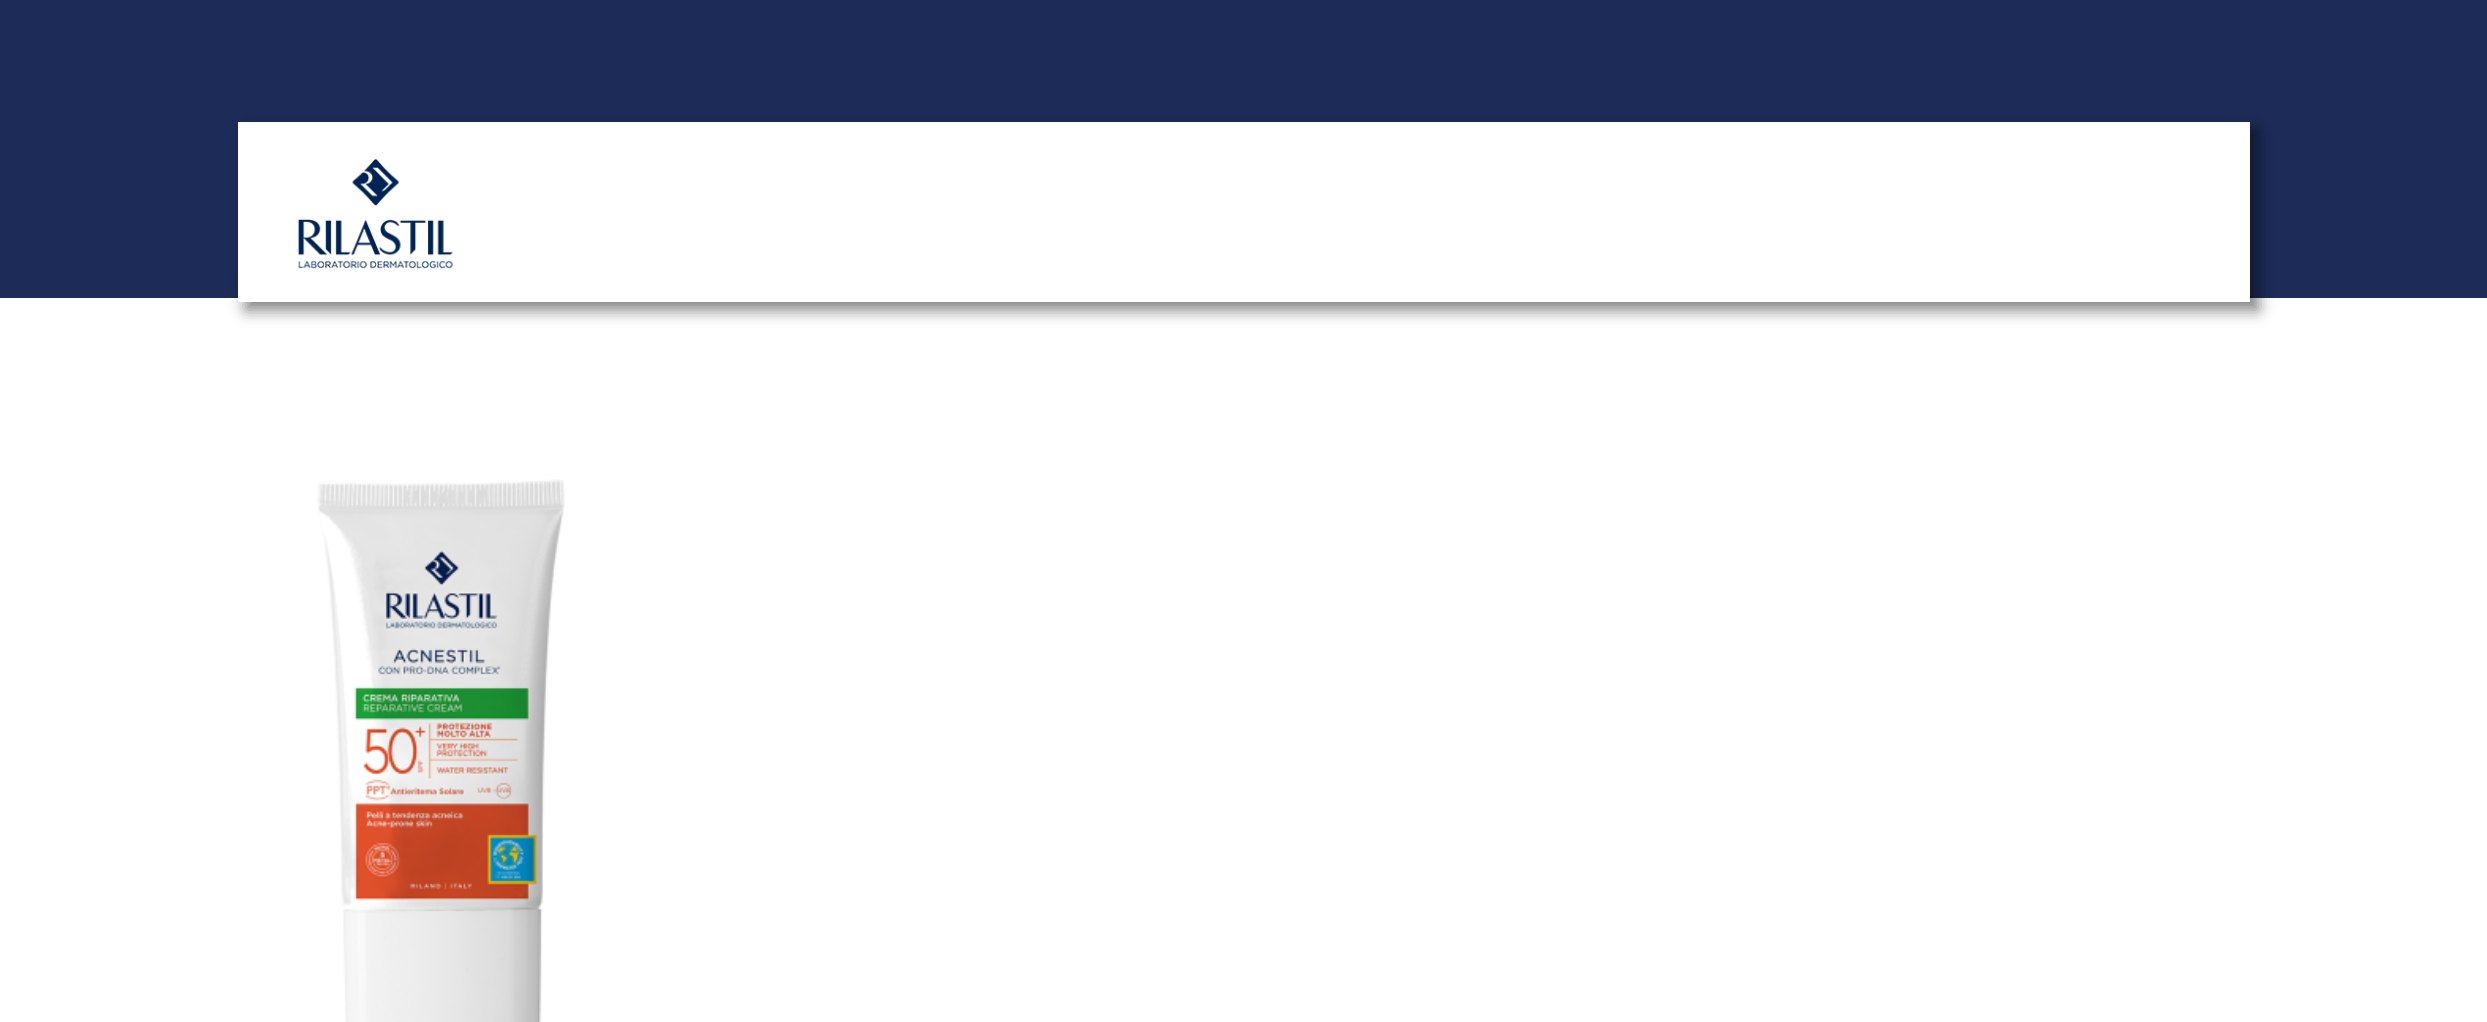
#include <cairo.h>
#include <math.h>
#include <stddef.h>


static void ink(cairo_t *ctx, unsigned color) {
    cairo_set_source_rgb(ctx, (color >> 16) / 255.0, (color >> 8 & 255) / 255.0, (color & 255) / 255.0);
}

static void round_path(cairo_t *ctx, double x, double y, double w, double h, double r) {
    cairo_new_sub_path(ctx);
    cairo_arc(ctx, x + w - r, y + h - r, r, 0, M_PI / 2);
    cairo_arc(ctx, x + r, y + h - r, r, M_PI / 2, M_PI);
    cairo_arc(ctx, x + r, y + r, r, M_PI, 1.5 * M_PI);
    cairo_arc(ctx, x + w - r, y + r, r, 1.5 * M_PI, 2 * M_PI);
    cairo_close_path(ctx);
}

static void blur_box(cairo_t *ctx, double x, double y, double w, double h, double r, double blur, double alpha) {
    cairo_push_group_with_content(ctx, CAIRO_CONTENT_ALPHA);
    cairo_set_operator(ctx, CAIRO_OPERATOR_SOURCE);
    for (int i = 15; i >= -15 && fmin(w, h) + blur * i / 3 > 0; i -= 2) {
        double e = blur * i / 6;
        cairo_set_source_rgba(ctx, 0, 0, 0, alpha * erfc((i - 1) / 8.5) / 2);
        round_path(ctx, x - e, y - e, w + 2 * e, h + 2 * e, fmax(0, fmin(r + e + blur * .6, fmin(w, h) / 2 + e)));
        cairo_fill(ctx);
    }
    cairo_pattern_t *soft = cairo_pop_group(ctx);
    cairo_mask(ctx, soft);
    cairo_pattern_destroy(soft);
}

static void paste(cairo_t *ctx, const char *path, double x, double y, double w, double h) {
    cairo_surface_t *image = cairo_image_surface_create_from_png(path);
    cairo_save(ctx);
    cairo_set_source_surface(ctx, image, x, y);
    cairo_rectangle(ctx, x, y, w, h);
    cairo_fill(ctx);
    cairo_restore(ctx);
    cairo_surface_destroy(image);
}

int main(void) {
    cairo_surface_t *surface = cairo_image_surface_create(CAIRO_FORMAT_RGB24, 2487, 1022);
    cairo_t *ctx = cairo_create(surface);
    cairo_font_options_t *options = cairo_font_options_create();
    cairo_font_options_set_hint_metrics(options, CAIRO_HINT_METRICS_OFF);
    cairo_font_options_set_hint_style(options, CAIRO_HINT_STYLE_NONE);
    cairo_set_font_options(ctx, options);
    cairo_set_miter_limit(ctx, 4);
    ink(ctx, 0xFFFFFF);
    cairo_paint(ctx);
    ink(ctx, 0x1D2B59);
    cairo_rectangle(ctx, 0, 0, 2487, 298);
    cairo_fill(ctx);
    ink(ctx, 0x000000);
    blur_box(ctx, 246, 130, 2012, 180, 0, 8, 0.5);
    ink(ctx, 0xFFFFFF);
    cairo_rectangle(ctx, 238, 122, 2012, 180);
    cairo_fill(ctx);
    paste(ctx, "media/1.png", 298, 158, 155, 111);
    paste(ctx, "media/2.png", 317, 479, 248, 543);
    cairo_surface_write_to_png(surface, "image.png");
    cairo_font_options_destroy(options);
    cairo_destroy(ctx);
    cairo_surface_destroy(surface);
    return 0;
}
